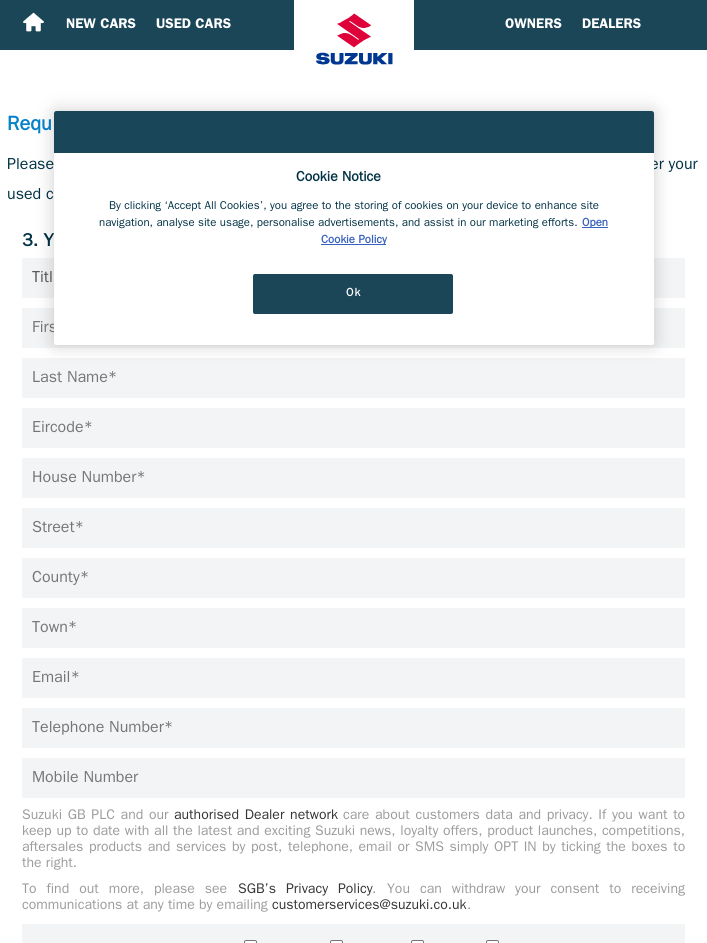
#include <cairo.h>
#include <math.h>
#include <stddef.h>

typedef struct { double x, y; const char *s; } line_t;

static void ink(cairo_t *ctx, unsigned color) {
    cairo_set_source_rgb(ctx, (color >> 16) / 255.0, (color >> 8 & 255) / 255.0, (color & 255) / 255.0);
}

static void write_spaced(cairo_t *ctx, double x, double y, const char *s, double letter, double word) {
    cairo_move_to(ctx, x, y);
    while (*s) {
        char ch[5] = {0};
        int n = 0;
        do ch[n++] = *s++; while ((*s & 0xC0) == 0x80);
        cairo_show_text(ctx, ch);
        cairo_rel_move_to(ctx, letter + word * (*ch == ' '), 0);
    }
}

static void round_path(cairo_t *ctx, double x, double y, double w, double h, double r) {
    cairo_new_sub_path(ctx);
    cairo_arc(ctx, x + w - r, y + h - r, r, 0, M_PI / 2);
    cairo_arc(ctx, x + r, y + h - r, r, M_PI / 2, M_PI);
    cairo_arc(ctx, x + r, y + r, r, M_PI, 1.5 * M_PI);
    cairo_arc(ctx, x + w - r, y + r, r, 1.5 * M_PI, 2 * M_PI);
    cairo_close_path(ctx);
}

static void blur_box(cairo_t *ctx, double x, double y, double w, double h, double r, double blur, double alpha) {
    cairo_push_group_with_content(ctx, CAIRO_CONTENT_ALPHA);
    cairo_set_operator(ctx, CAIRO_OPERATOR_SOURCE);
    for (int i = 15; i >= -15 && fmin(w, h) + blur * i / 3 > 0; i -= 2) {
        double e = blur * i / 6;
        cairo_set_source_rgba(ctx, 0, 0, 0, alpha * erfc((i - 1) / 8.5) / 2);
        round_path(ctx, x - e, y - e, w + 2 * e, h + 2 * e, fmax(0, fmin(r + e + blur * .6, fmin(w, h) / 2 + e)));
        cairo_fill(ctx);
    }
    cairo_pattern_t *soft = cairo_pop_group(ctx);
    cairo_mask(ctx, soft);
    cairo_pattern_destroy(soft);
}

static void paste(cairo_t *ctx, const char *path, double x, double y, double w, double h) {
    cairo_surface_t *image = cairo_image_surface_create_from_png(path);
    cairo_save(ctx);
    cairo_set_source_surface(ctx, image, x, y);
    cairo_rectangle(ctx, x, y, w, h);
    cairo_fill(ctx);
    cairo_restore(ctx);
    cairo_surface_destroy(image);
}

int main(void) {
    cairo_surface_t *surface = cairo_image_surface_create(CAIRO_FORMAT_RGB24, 707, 943);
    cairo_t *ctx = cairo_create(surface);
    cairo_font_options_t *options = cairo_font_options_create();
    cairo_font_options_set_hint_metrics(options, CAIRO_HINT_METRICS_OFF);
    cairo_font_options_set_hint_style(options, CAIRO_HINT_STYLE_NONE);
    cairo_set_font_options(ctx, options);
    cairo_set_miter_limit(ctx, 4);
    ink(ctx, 0xFFFFFF);
    cairo_paint(ctx);
    ink(ctx, 0x1A4658);
    cairo_rectangle(ctx, 0, 0, 707, 50);
    cairo_fill(ctx);
    paste(ctx, "media/1.png", 294, 0, 120, 65);
    paste(ctx, "media/2.png", 23, 12, 21, 20);
    cairo_select_font_face(ctx, "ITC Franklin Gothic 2", CAIRO_FONT_SLANT_NORMAL, CAIRO_FONT_WEIGHT_NORMAL);
    cairo_set_font_size(ctx, 14);
    ink(ctx, 0xFFFFFF);
    {
        static const line_t items[] = {
            {66, 28, "NEW CARS"},
            {156, 28, "USED CARS"},
            {505, 28, "OWNERS"},
            {582, 28, "DEALERS"},
        };
        for (size_t i = 0; i < sizeof items / sizeof *items; i++) {
            cairo_move_to(ctx, items[i].x, items[i].y);
            cairo_show_text(ctx, items[i].s);
        }
    }
    cairo_select_font_face(ctx, "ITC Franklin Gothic", CAIRO_FONT_SLANT_NORMAL, CAIRO_FONT_WEIGHT_BOLD);
    cairo_set_font_size(ctx, 20);
    ink(ctx, 0x0582CA);
    cairo_move_to(ctx, 7, 130);
    cairo_show_text(ctx, "Requ");
    cairo_select_font_face(ctx, "ITC Franklin Gothic", CAIRO_FONT_SLANT_NORMAL, CAIRO_FONT_WEIGHT_NORMAL);
    cairo_set_font_size(ctx, 16);
    ink(ctx, 0x003145);
    {
        static const line_t items[] = {
            {7, 169, "Please"},
            {650, 169, "er your"},
            {7, 199, "used c"},
        };
        for (size_t i = 0; i < sizeof items / sizeof *items; i++) {
            cairo_move_to(ctx, items[i].x, items[i].y);
            cairo_show_text(ctx, items[i].s);
        }
    }
    cairo_select_font_face(ctx, "ITC Franklin Gothic", CAIRO_FONT_SLANT_NORMAL, CAIRO_FONT_WEIGHT_BOLD);
    cairo_set_font_size(ctx, 18);
    cairo_move_to(ctx, 22, 246);
    cairo_show_text(ctx, "3. Y");
    ink(ctx, 0xF2F4F5);
    cairo_rectangle(ctx, 22, 258, 663, 40);
    cairo_fill(ctx);
    cairo_select_font_face(ctx, "ITC Franklin Gothic", CAIRO_FONT_SLANT_NORMAL, CAIRO_FONT_WEIGHT_NORMAL);
    cairo_set_font_size(ctx, 16);
    ink(ctx, 0x555555);
    cairo_move_to(ctx, 32, 282);
    cairo_show_text(ctx, "Titl");
    ink(ctx, 0xF2F4F5);
    cairo_rectangle(ctx, 22, 308, 663, 40);
    cairo_fill(ctx);
    ink(ctx, 0x757575);
    cairo_move_to(ctx, 32, 332);
    cairo_show_text(ctx, "Firs");
    ink(ctx, 0xF2F4F5);
    cairo_rectangle(ctx, 22, 358, 663, 40);
    cairo_fill(ctx);
    ink(ctx, 0x757575);
    cairo_move_to(ctx, 32, 382);
    cairo_show_text(ctx, "Last Name*");
    ink(ctx, 0xF2F4F5);
    cairo_rectangle(ctx, 22, 408, 663, 40);
    cairo_fill(ctx);
    ink(ctx, 0x757575);
    cairo_move_to(ctx, 32, 432);
    cairo_show_text(ctx, "Eircode*");
    ink(ctx, 0xF2F4F5);
    cairo_rectangle(ctx, 22, 458, 663, 40);
    cairo_fill(ctx);
    ink(ctx, 0x757575);
    cairo_move_to(ctx, 32, 482);
    cairo_show_text(ctx, "House Number*");
    ink(ctx, 0xF2F4F5);
    cairo_rectangle(ctx, 22, 508, 663, 40);
    cairo_fill(ctx);
    ink(ctx, 0x757575);
    cairo_move_to(ctx, 32, 532);
    cairo_show_text(ctx, "Street*");
    ink(ctx, 0xF2F4F5);
    cairo_rectangle(ctx, 22, 558, 663, 40);
    cairo_fill(ctx);
    ink(ctx, 0x757575);
    cairo_move_to(ctx, 32, 582);
    cairo_show_text(ctx, "County*");
    ink(ctx, 0xF2F4F5);
    cairo_rectangle(ctx, 22, 608, 663, 40);
    cairo_fill(ctx);
    ink(ctx, 0x757575);
    cairo_move_to(ctx, 32, 632);
    cairo_show_text(ctx, "Town*");
    ink(ctx, 0xF2F4F5);
    cairo_rectangle(ctx, 22, 658, 663, 40);
    cairo_fill(ctx);
    ink(ctx, 0x757575);
    cairo_move_to(ctx, 32, 682);
    cairo_show_text(ctx, "Email*");
    ink(ctx, 0xF2F4F5);
    cairo_rectangle(ctx, 22, 708, 663, 40);
    cairo_fill(ctx);
    ink(ctx, 0x757575);
    cairo_move_to(ctx, 32, 732);
    cairo_show_text(ctx, "Telephone Number*");
    ink(ctx, 0xF2F4F5);
    cairo_rectangle(ctx, 22, 758, 663, 40);
    cairo_fill(ctx);
    ink(ctx, 0x757575);
    cairo_move_to(ctx, 32, 782);
    cairo_show_text(ctx, "Mobile Number");
    cairo_set_font_size(ctx, 14);
    ink(ctx, 0x9B9B9B);
    write_spaced(ctx, 22, 819, "Suzuki GB PLC and our", 0, 1.5);
    ink(ctx, 0x333333);
    write_spaced(ctx, 174, 819, "authorised Dealer network", 0, 1.5);
    ink(ctx, 0x9B9B9B);
    write_spaced(ctx, 343, 819, "care about customers data and privacy. If you want to", 0, 1.5);
    write_spaced(ctx, 22, 835, "keep up to date with all the latest and exciting", 0, 0.5);
    write_spaced(ctx, 315, 835, "Suzuki news, loyalty offers, product launches, competitions,", 0, 0.5);
    write_spaced(ctx, 22, 851, "aftersales products and services by post,", 0, 1.4);
    write_spaced(ctx, 288, 851, "telephone, email or SMS simply OPT IN by ticking the boxes to", 0, 1.4);
    cairo_move_to(ctx, 22, 867);
    cairo_show_text(ctx, "the right.");
    write_spaced(ctx, 22, 893, "To find out more, please see", 0, 5.75);
    ink(ctx, 0x333333);
    write_spaced(ctx, 238, 893, "SGB’s Privacy Policy", 0, 5.75);
    ink(ctx, 0x9B9B9B);
    cairo_move_to(ctx, 372, 893);
    cairo_show_text(ctx, ".");
    write_spaced(ctx, 387, 893, "You can withdraw your consent to receiving", 0, 5.75);
    cairo_move_to(ctx, 22, 909);
    cairo_show_text(ctx, "communications at any time by emailing");
    ink(ctx, 0x333333);
    cairo_move_to(ctx, 272, 909);
    cairo_show_text(ctx, "customerservices@suzuki.co.uk");
    ink(ctx, 0x9B9B9B);
    cairo_move_to(ctx, 467, 909);
    cairo_show_text(ctx, ".");
    ink(ctx, 0xF2F4F5);
    cairo_rectangle(ctx, 22, 924, 663, 19);
    cairo_fill(ctx);
    ink(ctx, 0xFFFFFF);
    round_path(ctx, 244.5, 940.5, 12, 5, 1.5);
    cairo_fill_preserve(ctx);
    ink(ctx, 0x767676);
    cairo_set_line_width(ctx, 1);
    cairo_stroke(ctx);
    ink(ctx, 0xFFFFFF);
    round_path(ctx, 330.5, 940.5, 12, 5, 1.5);
    cairo_fill_preserve(ctx);
    ink(ctx, 0x767676);
    cairo_stroke(ctx);
    ink(ctx, 0xFFFFFF);
    round_path(ctx, 411.5, 940.5, 12, 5, 1.5);
    cairo_fill_preserve(ctx);
    ink(ctx, 0x767676);
    cairo_stroke(ctx);
    ink(ctx, 0xFFFFFF);
    round_path(ctx, 486.5, 940.5, 12, 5, 1.5);
    cairo_fill_preserve(ctx);
    ink(ctx, 0x767676);
    cairo_stroke(ctx);
    ink(ctx, 0x000000);
    blur_box(ctx, 54, 111, 600, 234, 2.5, 9, 0.2);
    ink(ctx, 0xFFFFFF);
    round_path(ctx, 54, 111, 600, 234, 2.5);
    cairo_fill(ctx);
    ink(ctx, 0x194658);
    cairo_new_path(ctx);
    cairo_move_to(ctx, 56.5, 111);
    cairo_line_to(ctx, 651.5, 111);
    cairo_curve_to(ctx, 653, 111, 654, 112, 654, 113.5);
    cairo_line_to(ctx, 654, 153);
    cairo_line_to(ctx, 54, 153);
    cairo_line_to(ctx, 54, 113.5);
    cairo_curve_to(ctx, 54, 112, 55, 111, 56.5, 111);
    cairo_close_path(ctx);
    cairo_fill(ctx);
    cairo_select_font_face(ctx, "ITC Franklin Gothic", CAIRO_FONT_SLANT_NORMAL, CAIRO_FONT_WEIGHT_BOLD);
    ink(ctx, 0x003145);
    cairo_move_to(ctx, 296, 181);
    cairo_show_text(ctx, "Cookie Notice");
    cairo_select_font_face(ctx, "ITC Franklin Gothic", CAIRO_FONT_SLANT_NORMAL, CAIRO_FONT_WEIGHT_NORMAL);
    cairo_set_font_size(ctx, 11.4);
    cairo_move_to(ctx, 109, 209);
    cairo_show_text(ctx, "By clicking ‘Accept All Cookies’, you agree to the storing of cookies on your device to enhance site");
    cairo_move_to(ctx, 99, 226);
    cairo_show_text(ctx, "navigation, analyse site usage, personalise advertisements, and assist in our marketing efforts.");
    ink(ctx, 0x3860BE);
    cairo_rectangle(ctx, 582, 227, 26, 1);
    cairo_fill(ctx);
    cairo_select_font_face(ctx, "ITC Franklin Gothic", CAIRO_FONT_SLANT_NORMAL, CAIRO_FONT_WEIGHT_BOLD);
    cairo_move_to(ctx, 582, 226);
    cairo_show_text(ctx, "Open");
    cairo_rectangle(ctx, 321, 244, 65, 1);
    cairo_fill(ctx);
    cairo_move_to(ctx, 321, 243);
    cairo_show_text(ctx, "Cookie Policy");
    ink(ctx, 0x1A4658);
    round_path(ctx, 253, 274, 200, 40, 2);
    cairo_fill(ctx);
    ink(ctx, 0xFFFFFF);
    write_spaced(ctx, 346, 296, "Ok", 1, 0);
    cairo_surface_write_to_png(surface, "image.png");
    cairo_font_options_destroy(options);
    cairo_destroy(ctx);
    cairo_surface_destroy(surface);
    return 0;
}
